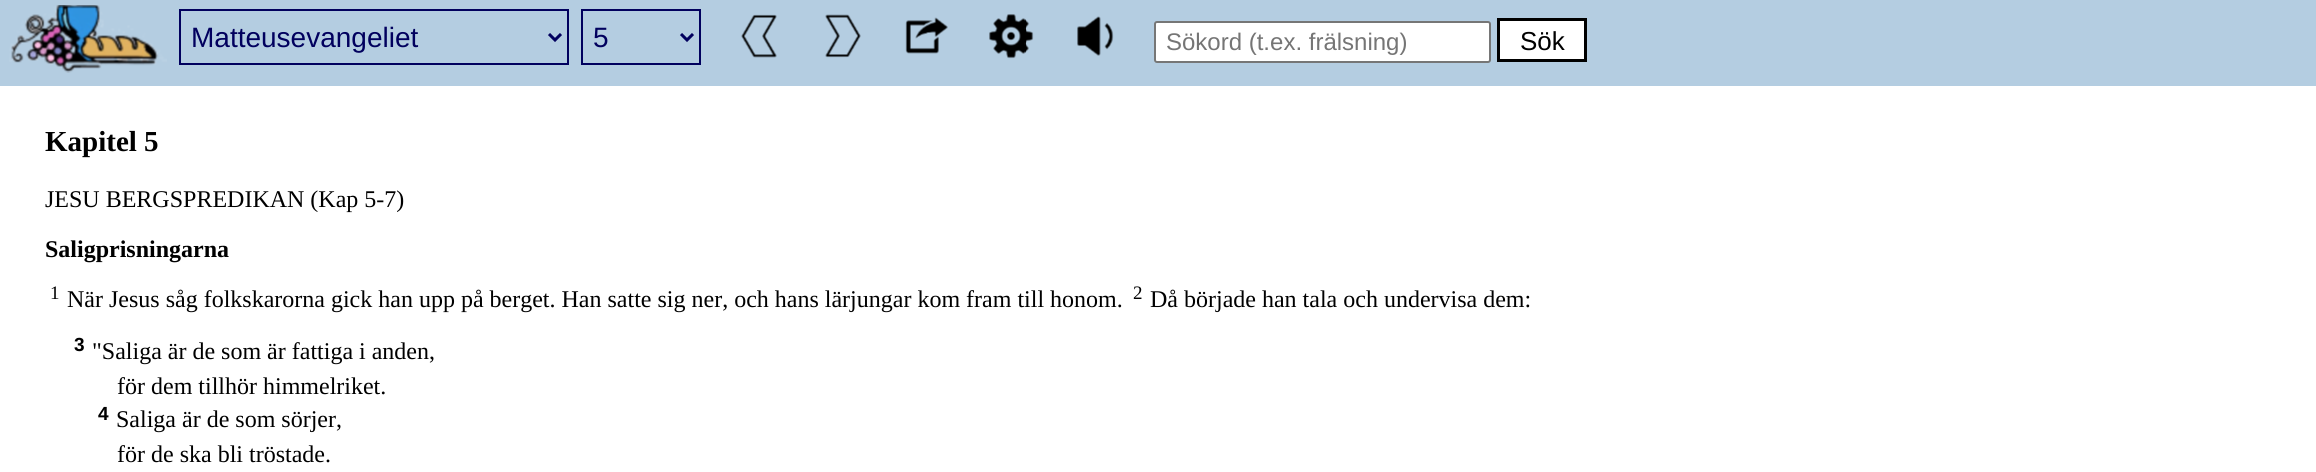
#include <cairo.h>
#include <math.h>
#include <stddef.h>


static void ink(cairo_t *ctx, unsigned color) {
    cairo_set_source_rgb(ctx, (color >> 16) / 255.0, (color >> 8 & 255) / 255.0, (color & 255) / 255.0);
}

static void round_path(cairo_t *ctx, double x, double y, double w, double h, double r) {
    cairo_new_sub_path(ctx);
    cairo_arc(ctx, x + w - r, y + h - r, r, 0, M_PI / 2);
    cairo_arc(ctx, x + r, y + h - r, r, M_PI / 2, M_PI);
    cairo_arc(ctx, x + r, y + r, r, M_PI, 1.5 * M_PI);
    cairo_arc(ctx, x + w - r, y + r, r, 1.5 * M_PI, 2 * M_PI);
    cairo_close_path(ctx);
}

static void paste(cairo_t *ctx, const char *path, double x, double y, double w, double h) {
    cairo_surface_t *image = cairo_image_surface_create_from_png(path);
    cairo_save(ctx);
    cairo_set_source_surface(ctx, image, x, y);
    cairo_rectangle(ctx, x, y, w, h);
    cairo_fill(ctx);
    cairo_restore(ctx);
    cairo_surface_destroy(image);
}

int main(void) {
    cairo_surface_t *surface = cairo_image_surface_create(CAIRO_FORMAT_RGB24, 2316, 472);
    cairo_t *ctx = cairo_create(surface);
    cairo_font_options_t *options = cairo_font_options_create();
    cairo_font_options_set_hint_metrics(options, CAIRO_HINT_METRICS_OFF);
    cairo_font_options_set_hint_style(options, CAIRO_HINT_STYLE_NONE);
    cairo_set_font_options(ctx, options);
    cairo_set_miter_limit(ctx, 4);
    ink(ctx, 0xFFFFFF);
    cairo_paint(ctx);
    ink(ctx, 0xB4CDE1);
    cairo_rectangle(ctx, 0, 0, 2316, 86);
    cairo_fill(ctx);
    paste(ctx, "media/1.png", 9, 5, 158, 68);
    cairo_rectangle(ctx, 180, 10, 388, 54);
    ink(ctx, 0x01005E);
    cairo_stroke(ctx);
    cairo_new_path(ctx);
    cairo_move_to(ctx, 549, 34);
    cairo_line_to(ctx, 555, 40);
    cairo_line_to(ctx, 561, 34);
    cairo_set_line_width(ctx, 3);
    cairo_stroke(ctx);
    cairo_select_font_face(ctx, "Liberation Sans", CAIRO_FONT_SLANT_NORMAL, CAIRO_FONT_WEIGHT_NORMAL);
    cairo_set_font_size(ctx, 28);
    cairo_move_to(ctx, 191, 47);
    cairo_show_text(ctx, "Matteusevangeliet");
    cairo_rectangle(ctx, 582, 10, 118, 54);
    cairo_set_line_width(ctx, 2);
    cairo_stroke(ctx);
    cairo_new_path(ctx);
    cairo_move_to(ctx, 681, 34);
    cairo_line_to(ctx, 687, 40);
    cairo_line_to(ctx, 693, 34);
    cairo_set_line_width(ctx, 3);
    cairo_stroke(ctx);
    cairo_move_to(ctx, 593, 47);
    cairo_show_text(ctx, "5");
    paste(ctx, "media/2.png", 741, 14, 36, 44);
    paste(ctx, "media/3.png", 825, 14, 36, 44);
    paste(ctx, "media/4.png", 905, 17, 43, 37);
    paste(ctx, "media/5.png", 989, 14, 45, 45);
    paste(ctx, "media/6.png", 1077, 16, 37, 40);
    ink(ctx, 0xFFFFFF);
    round_path(ctx, 1155, 22, 335, 40, 2);
    cairo_fill_preserve(ctx);
    ink(ctx, 0x767676);
    cairo_set_line_width(ctx, 2);
    cairo_stroke(ctx);
    cairo_set_font_size(ctx, 24);
    ink(ctx, 0x757575);
    cairo_move_to(ctx, 1166, 50);
    cairo_show_text(ctx, "Sökord (t.ex. frälsning)");
    ink(ctx, 0xFFFFFF);
    cairo_rectangle(ctx, 1498.5, 19.5, 87, 41);
    cairo_fill_preserve(ctx);
    ink(ctx, 0x000000);
    cairo_set_line_width(ctx, 3);
    cairo_stroke(ctx);
    cairo_set_font_size(ctx, 26);
    cairo_move_to(ctx, 1520, 50);
    cairo_show_text(ctx, "Sök");
    cairo_select_font_face(ctx, "Liberation Serif", CAIRO_FONT_SLANT_NORMAL, CAIRO_FONT_WEIGHT_BOLD);
    cairo_set_font_size(ctx, 29);
    cairo_move_to(ctx, 45, 151);
    cairo_show_text(ctx, "Kapitel 5");
    cairo_select_font_face(ctx, "Liberation Serif", CAIRO_FONT_SLANT_NORMAL, CAIRO_FONT_WEIGHT_NORMAL);
    cairo_set_font_size(ctx, 24);
    cairo_move_to(ctx, 45, 207);
    cairo_show_text(ctx, "JESU BERGSPREDIKAN (Kap 5-7)");
    cairo_select_font_face(ctx, "Liberation Serif", CAIRO_FONT_SLANT_NORMAL, CAIRO_FONT_WEIGHT_BOLD);
    cairo_move_to(ctx, 45, 257);
    cairo_show_text(ctx, "Saligprisningarna");
    cairo_select_font_face(ctx, "Liberation Serif", CAIRO_FONT_SLANT_NORMAL, CAIRO_FONT_WEIGHT_NORMAL);
    cairo_set_font_size(ctx, 19);
    cairo_move_to(ctx, 50, 299);
    cairo_show_text(ctx, "1");
    cairo_set_font_size(ctx, 24);
    cairo_move_to(ctx, 67, 307);
    cairo_show_text(ctx, "När Jesus såg folkskarorna gick han upp på berget. Han satte sig ner, och hans lärjungar kom fram till honom.");
    cairo_set_font_size(ctx, 19);
    cairo_move_to(ctx, 1133, 299);
    cairo_show_text(ctx, "2");
    cairo_set_font_size(ctx, 24);
    cairo_move_to(ctx, 1150, 307);
    cairo_show_text(ctx, "Då började han tala och undervisa dem:");
    cairo_select_font_face(ctx, "Liberation Sans", CAIRO_FONT_SLANT_NORMAL, CAIRO_FONT_WEIGHT_BOLD);
    cairo_set_font_size(ctx, 19);
    cairo_move_to(ctx, 74, 351);
    cairo_show_text(ctx, "3");
    cairo_select_font_face(ctx, "Liberation Serif", CAIRO_FONT_SLANT_NORMAL, CAIRO_FONT_WEIGHT_NORMAL);
    cairo_set_font_size(ctx, 24);
    cairo_move_to(ctx, 92, 359);
    cairo_show_text(ctx, "\"Saliga är de som är fattiga i anden,");
    cairo_move_to(ctx, 117, 394);
    cairo_show_text(ctx, "för dem tillhör himmelriket.");
    cairo_select_font_face(ctx, "Liberation Sans", CAIRO_FONT_SLANT_NORMAL, CAIRO_FONT_WEIGHT_BOLD);
    cairo_set_font_size(ctx, 19);
    cairo_move_to(ctx, 98, 420);
    cairo_show_text(ctx, "4");
    cairo_select_font_face(ctx, "Liberation Serif", CAIRO_FONT_SLANT_NORMAL, CAIRO_FONT_WEIGHT_NORMAL);
    cairo_set_font_size(ctx, 24);
    cairo_move_to(ctx, 116, 427);
    cairo_show_text(ctx, "Saliga är de som sörjer,");
    cairo_move_to(ctx, 117, 462);
    cairo_show_text(ctx, "för de ska bli tröstade.");
    cairo_surface_write_to_png(surface, "image.png");
    cairo_font_options_destroy(options);
    cairo_destroy(ctx);
    cairo_surface_destroy(surface);
    return 0;
}
